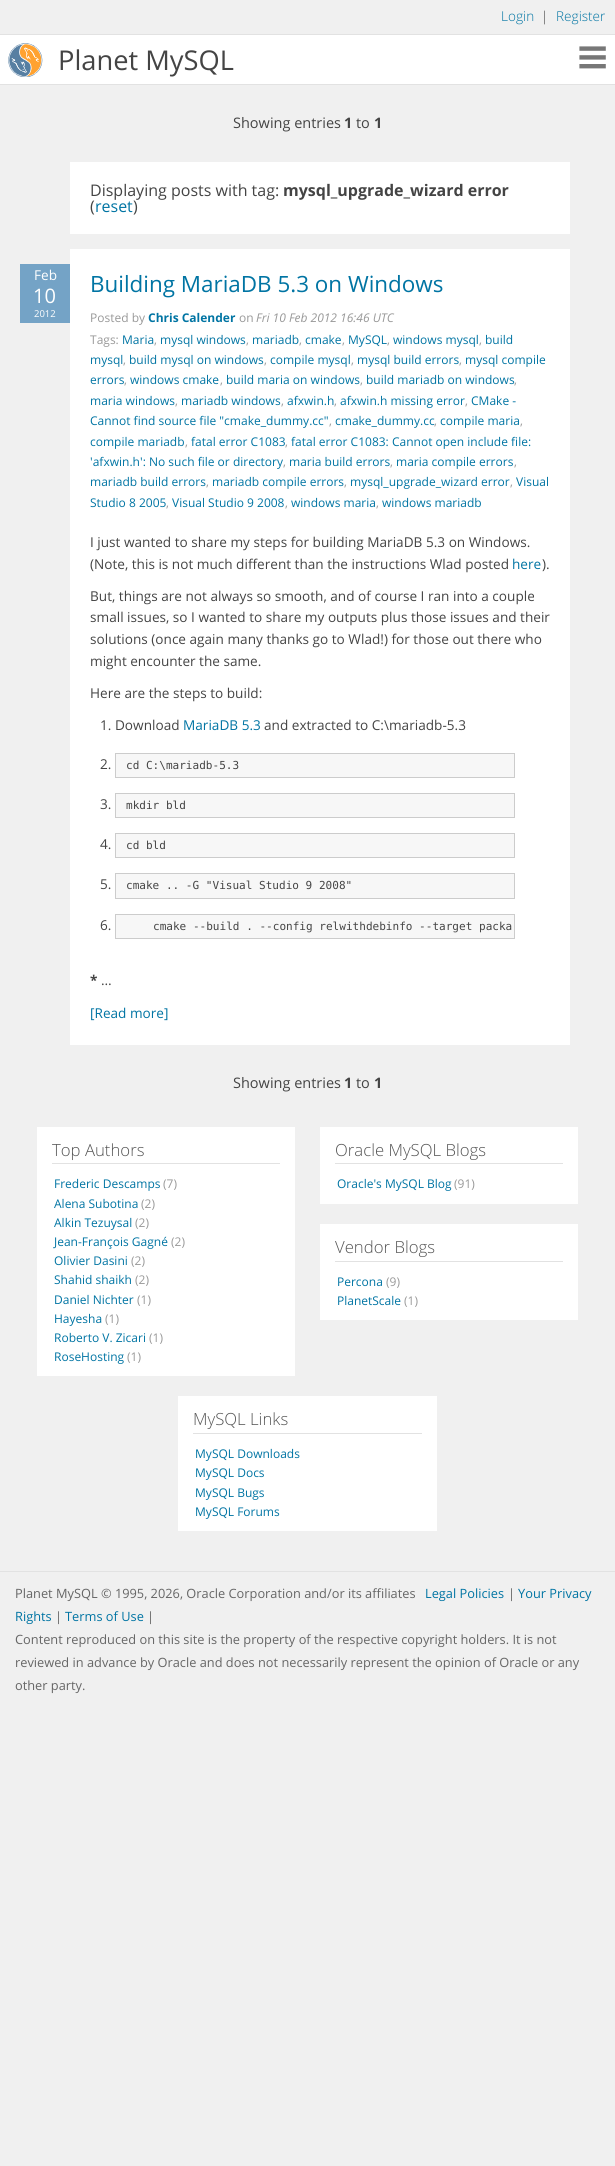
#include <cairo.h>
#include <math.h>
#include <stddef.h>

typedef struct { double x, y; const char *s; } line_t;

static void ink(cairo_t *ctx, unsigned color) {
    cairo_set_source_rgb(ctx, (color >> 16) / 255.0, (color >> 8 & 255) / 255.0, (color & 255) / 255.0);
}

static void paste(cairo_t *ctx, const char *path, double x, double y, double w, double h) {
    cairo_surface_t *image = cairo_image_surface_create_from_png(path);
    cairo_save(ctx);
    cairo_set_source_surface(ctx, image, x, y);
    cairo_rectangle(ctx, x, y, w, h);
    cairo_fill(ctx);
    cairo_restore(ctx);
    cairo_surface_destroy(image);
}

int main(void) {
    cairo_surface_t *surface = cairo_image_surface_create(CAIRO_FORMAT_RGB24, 615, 2166);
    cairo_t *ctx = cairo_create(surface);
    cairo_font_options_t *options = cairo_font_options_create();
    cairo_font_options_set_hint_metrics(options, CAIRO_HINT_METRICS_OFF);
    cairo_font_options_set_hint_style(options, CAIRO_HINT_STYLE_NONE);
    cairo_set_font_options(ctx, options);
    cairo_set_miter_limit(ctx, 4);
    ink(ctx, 0xF0F0F0);
    cairo_paint(ctx);
    ink(ctx, 0xE2E2E2);
    cairo_rectangle(ctx, 0, 34, 615, 1);
    cairo_fill(ctx);
    cairo_select_font_face(ctx, "Open Sans Light", CAIRO_FONT_SLANT_NORMAL, CAIRO_FONT_WEIGHT_NORMAL);
    cairo_set_font_size(ctx, 13.6);
    ink(ctx, 0x0074A3);
    cairo_move_to(ctx, 501, 21);
    cairo_show_text(ctx, "Login");
    ink(ctx, 0x444444);
    cairo_move_to(ctx, 541, 21);
    cairo_show_text(ctx, "|");
    ink(ctx, 0x0074A3);
    cairo_move_to(ctx, 556, 21);
    cairo_show_text(ctx, "Register");
    ink(ctx, 0xFFFFFF);
    cairo_rectangle(ctx, 0, 35, 615, 49);
    cairo_fill(ctx);
    ink(ctx, 0xE2E2E2);
    cairo_rectangle(ctx, 0, 84, 615, 1);
    cairo_fill(ctx);
    paste(ctx, "media/1.png", 8, 43, 35, 34);
    cairo_select_font_face(ctx, "Open Sans", CAIRO_FONT_SLANT_NORMAL, CAIRO_FONT_WEIGHT_NORMAL);
    cairo_set_font_size(ctx, 27.25);
    ink(ctx, 0x444444);
    cairo_move_to(ctx, 58, 70);
    cairo_show_text(ctx, "Planet MySQL");
    paste(ctx, "media/2.png", 579, 46, 27, 23);
    cairo_set_font_size(ctx, 14.5);
    cairo_move_to(ctx, 233, 128);
    cairo_show_text(ctx, "Showing entries");
    cairo_select_font_face(ctx, "Open Sans", CAIRO_FONT_SLANT_NORMAL, CAIRO_FONT_WEIGHT_BOLD);
    cairo_move_to(ctx, 344, 128);
    cairo_show_text(ctx, "1");
    cairo_select_font_face(ctx, "Open Sans", CAIRO_FONT_SLANT_NORMAL, CAIRO_FONT_WEIGHT_NORMAL);
    cairo_move_to(ctx, 356, 128);
    cairo_show_text(ctx, "to");
    cairo_select_font_face(ctx, "Open Sans", CAIRO_FONT_SLANT_NORMAL, CAIRO_FONT_WEIGHT_BOLD);
    cairo_move_to(ctx, 374, 128);
    cairo_show_text(ctx, "1");
    ink(ctx, 0xFFFFFF);
    cairo_rectangle(ctx, 70, 162, 500, 72);
    cairo_fill(ctx);
    cairo_select_font_face(ctx, "Open Sans", CAIRO_FONT_SLANT_NORMAL, CAIRO_FONT_WEIGHT_NORMAL);
    cairo_set_font_size(ctx, 16);
    ink(ctx, 0x444444);
    cairo_move_to(ctx, 90, 196);
    cairo_show_text(ctx, "Displaying posts with tag:");
    cairo_select_font_face(ctx, "Open Sans", CAIRO_FONT_SLANT_NORMAL, CAIRO_FONT_WEIGHT_BOLD);
    cairo_move_to(ctx, 283, 196);
    cairo_show_text(ctx, "mysql_upgrade_wizard error");
    cairo_select_font_face(ctx, "Open Sans", CAIRO_FONT_SLANT_NORMAL, CAIRO_FONT_WEIGHT_NORMAL);
    cairo_move_to(ctx, 90, 212);
    cairo_show_text(ctx, "(");
    ink(ctx, 0x0074A3);
    cairo_move_to(ctx, 95, 212);
    cairo_show_text(ctx, "reset");
    ink(ctx, 0x444444);
    cairo_move_to(ctx, 133, 212);
    cairo_show_text(ctx, ")");
    ink(ctx, 0xFFFFFF);
    cairo_rectangle(ctx, 70, 249, 500, 796);
    cairo_fill(ctx);
    ink(ctx, 0x74A3C6);
    cairo_rectangle(ctx, 20, 264, 50, 59);
    cairo_fill(ctx);
    cairo_set_font_size(ctx, 13.6);
    ink(ctx, 0xFFFFFF);
    cairo_move_to(ctx, 34, 280);
    cairo_show_text(ctx, "Feb");
    cairo_set_font_size(ctx, 20);
    cairo_move_to(ctx, 33, 303);
    cairo_show_text(ctx, "10");
    cairo_set_font_size(ctx, 9.5);
    cairo_move_to(ctx, 34, 317);
    cairo_show_text(ctx, "2012");
    cairo_set_font_size(ctx, 22.4);
    ink(ctx, 0x0074A3);
    cairo_move_to(ctx, 90, 292);
    cairo_show_text(ctx, "Building MariaDB 5.3 on Windows");
    cairo_set_font_size(ctx, 12);
    ink(ctx, 0x999999);
    cairo_move_to(ctx, 90, 322);
    cairo_show_text(ctx, "Posted by");
    cairo_select_font_face(ctx, "Open Sans", CAIRO_FONT_SLANT_NORMAL, CAIRO_FONT_WEIGHT_BOLD);
    ink(ctx, 0x0074A3);
    cairo_move_to(ctx, 148, 322);
    cairo_show_text(ctx, "Chris Calender");
    cairo_select_font_face(ctx, "Open Sans", CAIRO_FONT_SLANT_NORMAL, CAIRO_FONT_WEIGHT_NORMAL);
    ink(ctx, 0x999999);
    cairo_move_to(ctx, 239, 322);
    cairo_show_text(ctx, "on");
    cairo_select_font_face(ctx, "Open Sans", CAIRO_FONT_SLANT_ITALIC, CAIRO_FONT_WEIGHT_NORMAL);
    cairo_move_to(ctx, 256, 322);
    cairo_show_text(ctx, "Fri 10 Feb 2012 16:46 UTC");
    cairo_select_font_face(ctx, "Open Sans", CAIRO_FONT_SLANT_NORMAL, CAIRO_FONT_WEIGHT_NORMAL);
    cairo_move_to(ctx, 90, 344);
    cairo_show_text(ctx, "Tags:");
    ink(ctx, 0x0074A3);
    cairo_move_to(ctx, 122, 344);
    cairo_show_text(ctx, "Maria");
    ink(ctx, 0x999999);
    cairo_move_to(ctx, 154, 344);
    cairo_show_text(ctx, ",");
    ink(ctx, 0x0074A3);
    cairo_move_to(ctx, 160, 344);
    cairo_show_text(ctx, "mysql windows");
    ink(ctx, 0x999999);
    cairo_move_to(ctx, 246, 344);
    cairo_show_text(ctx, ",");
    ink(ctx, 0x0074A3);
    cairo_move_to(ctx, 252, 344);
    cairo_show_text(ctx, "mariadb");
    ink(ctx, 0x999999);
    cairo_move_to(ctx, 299, 344);
    cairo_show_text(ctx, ",");
    ink(ctx, 0x0074A3);
    cairo_move_to(ctx, 305, 344);
    cairo_show_text(ctx, "cmake");
    ink(ctx, 0x999999);
    cairo_move_to(ctx, 342, 344);
    cairo_show_text(ctx, ",");
    ink(ctx, 0x0074A3);
    cairo_move_to(ctx, 348, 344);
    cairo_show_text(ctx, "MySQL");
    ink(ctx, 0x999999);
    cairo_move_to(ctx, 387, 344);
    cairo_show_text(ctx, ",");
    ink(ctx, 0x0074A3);
    cairo_move_to(ctx, 393, 344);
    cairo_show_text(ctx, "windows mysql");
    ink(ctx, 0x999999);
    cairo_move_to(ctx, 479, 344);
    cairo_show_text(ctx, ",");
    ink(ctx, 0x0074A3);
    cairo_move_to(ctx, 485, 344);
    cairo_show_text(ctx, "build");
    cairo_move_to(ctx, 90, 364);
    cairo_show_text(ctx, "mysql");
    ink(ctx, 0x999999);
    cairo_move_to(ctx, 123, 364);
    cairo_show_text(ctx, ",");
    ink(ctx, 0x0074A3);
    cairo_move_to(ctx, 129, 364);
    cairo_show_text(ctx, "build mysql on windows");
    ink(ctx, 0x999999);
    cairo_move_to(ctx, 264, 364);
    cairo_show_text(ctx, ",");
    ink(ctx, 0x0074A3);
    cairo_move_to(ctx, 270, 364);
    cairo_show_text(ctx, "compile mysql");
    ink(ctx, 0x999999);
    cairo_move_to(ctx, 351, 364);
    cairo_show_text(ctx, ",");
    ink(ctx, 0x0074A3);
    cairo_move_to(ctx, 357, 364);
    cairo_show_text(ctx, "mysql build errors");
    ink(ctx, 0x999999);
    cairo_move_to(ctx, 459, 364);
    cairo_show_text(ctx, ",");
    ink(ctx, 0x0074A3);
    cairo_move_to(ctx, 465, 364);
    cairo_show_text(ctx, "mysql compile");
    cairo_move_to(ctx, 90, 384);
    cairo_show_text(ctx, "errors");
    ink(ctx, 0x999999);
    cairo_move_to(ctx, 124, 384);
    cairo_show_text(ctx, ",");
    ink(ctx, 0x0074A3);
    cairo_move_to(ctx, 130, 384);
    cairo_show_text(ctx, "windows cmake");
    ink(ctx, 0x999999);
    cairo_move_to(ctx, 220, 384);
    cairo_show_text(ctx, ",");
    ink(ctx, 0x0074A3);
    cairo_move_to(ctx, 226, 384);
    cairo_show_text(ctx, "build maria on windows");
    ink(ctx, 0x999999);
    cairo_move_to(ctx, 360, 384);
    cairo_show_text(ctx, ",");
    ink(ctx, 0x0074A3);
    cairo_move_to(ctx, 366, 384);
    cairo_show_text(ctx, "build mariadb on windows");
    ink(ctx, 0x999999);
    cairo_move_to(ctx, 514, 384);
    cairo_show_text(ctx, ",");
    ink(ctx, 0x0074A3);
    cairo_move_to(ctx, 90, 405);
    cairo_show_text(ctx, "maria windows");
    ink(ctx, 0x999999);
    cairo_move_to(ctx, 175, 405);
    cairo_show_text(ctx, ",");
    ink(ctx, 0x0074A3);
    cairo_move_to(ctx, 181, 405);
    cairo_show_text(ctx, "mariadb windows");
    ink(ctx, 0x999999);
    cairo_move_to(ctx, 281, 405);
    cairo_show_text(ctx, ",");
    ink(ctx, 0x0074A3);
    cairo_move_to(ctx, 287, 405);
    cairo_show_text(ctx, "afxwin.h");
    ink(ctx, 0x999999);
    cairo_move_to(ctx, 334, 405);
    cairo_show_text(ctx, ",");
    ink(ctx, 0x0074A3);
    cairo_move_to(ctx, 340, 405);
    cairo_show_text(ctx, "afxwin.h missing error");
    ink(ctx, 0x999999);
    cairo_move_to(ctx, 465, 405);
    cairo_show_text(ctx, ",");
    ink(ctx, 0x0074A3);
    cairo_move_to(ctx, 471, 405);
    cairo_show_text(ctx, "CMake -");
    cairo_move_to(ctx, 90, 425);
    cairo_show_text(ctx, "Cannot find source file \"cmake_dummy.cc\"");
    ink(ctx, 0x999999);
    cairo_move_to(ctx, 329, 425);
    cairo_show_text(ctx, ",");
    ink(ctx, 0x0074A3);
    cairo_move_to(ctx, 335, 425);
    cairo_show_text(ctx, "cmake_dummy.cc");
    ink(ctx, 0x999999);
    cairo_move_to(ctx, 434, 425);
    cairo_show_text(ctx, ",");
    ink(ctx, 0x0074A3);
    cairo_move_to(ctx, 440, 425);
    cairo_show_text(ctx, "compile maria");
    ink(ctx, 0x999999);
    cairo_move_to(ctx, 520, 425);
    cairo_show_text(ctx, ",");
    ink(ctx, 0x0074A3);
    cairo_move_to(ctx, 90, 446);
    cairo_show_text(ctx, "compile mariadb");
    ink(ctx, 0x999999);
    cairo_move_to(ctx, 185, 446);
    cairo_show_text(ctx, ",");
    ink(ctx, 0x0074A3);
    cairo_move_to(ctx, 191, 446);
    cairo_show_text(ctx, "fatal error C1083");
    ink(ctx, 0x999999);
    cairo_move_to(ctx, 285, 446);
    cairo_show_text(ctx, ",");
    ink(ctx, 0x0074A3);
    cairo_move_to(ctx, 291, 446);
    cairo_show_text(ctx, "fatal error C1083: Cannot open include file:");
    cairo_move_to(ctx, 90, 466);
    cairo_show_text(ctx, "'afxwin.h': No such file or directory");
    ink(ctx, 0x999999);
    cairo_move_to(ctx, 283, 466);
    cairo_show_text(ctx, ",");
    ink(ctx, 0x0074A3);
    cairo_move_to(ctx, 289, 466);
    cairo_show_text(ctx, "maria build errors");
    ink(ctx, 0x999999);
    cairo_move_to(ctx, 390, 466);
    cairo_show_text(ctx, ",");
    ink(ctx, 0x0074A3);
    cairo_move_to(ctx, 396, 466);
    cairo_show_text(ctx, "maria compile errors");
    ink(ctx, 0x999999);
    cairo_move_to(ctx, 514, 466);
    cairo_show_text(ctx, ",");
    ink(ctx, 0x0074A3);
    cairo_move_to(ctx, 90, 486);
    cairo_show_text(ctx, "mariadb build errors");
    ink(ctx, 0x999999);
    cairo_move_to(ctx, 206, 486);
    cairo_show_text(ctx, ",");
    ink(ctx, 0x0074A3);
    cairo_move_to(ctx, 212, 486);
    cairo_show_text(ctx, "mariadb compile errors");
    ink(ctx, 0x999999);
    cairo_move_to(ctx, 344, 486);
    cairo_show_text(ctx, ",");
    ink(ctx, 0x0074A3);
    cairo_move_to(ctx, 350, 486);
    cairo_show_text(ctx, "mysql_upgrade_wizard error");
    ink(ctx, 0x999999);
    cairo_move_to(ctx, 510, 486);
    cairo_show_text(ctx, ",");
    ink(ctx, 0x0074A3);
    cairo_move_to(ctx, 516, 486);
    cairo_show_text(ctx, "Visual");
    cairo_move_to(ctx, 90, 507);
    cairo_show_text(ctx, "Studio 8 2005");
    ink(ctx, 0x999999);
    cairo_move_to(ctx, 166, 507);
    cairo_show_text(ctx, ",");
    ink(ctx, 0x0074A3);
    cairo_move_to(ctx, 172, 507);
    cairo_show_text(ctx, "Visual Studio 9 2008");
    ink(ctx, 0x999999);
    cairo_move_to(ctx, 285, 507);
    cairo_show_text(ctx, ",");
    ink(ctx, 0x0074A3);
    cairo_move_to(ctx, 291, 507);
    cairo_show_text(ctx, "windows maria");
    ink(ctx, 0x999999);
    cairo_move_to(ctx, 376, 507);
    cairo_show_text(ctx, ",");
    ink(ctx, 0x0074A3);
    cairo_move_to(ctx, 382, 507);
    cairo_show_text(ctx, "windows mariadb");
    cairo_set_font_size(ctx, 13.6);
    ink(ctx, 0x444444);
    cairo_move_to(ctx, 90, 547);
    cairo_show_text(ctx, "I just wanted to share my steps for building MariaDB 5.3 on Windows.");
    cairo_move_to(ctx, 90, 569);
    cairo_show_text(ctx, "(Note, this is not much different than the instructions Wlad posted");
    ink(ctx, 0x0074A3);
    cairo_move_to(ctx, 512, 569);
    cairo_show_text(ctx, "here");
    ink(ctx, 0x444444);
    {
        static const line_t items[] = {
            {542, 569, ")."},
            {90, 601, "But, things are not always so smooth, and of course I ran into a couple"},
            {90, 622, "small issues, so I wanted to share my outputs plus those issues and their"},
            {90, 644, "solutions (once again many thanks go to Wlad!) for those out there who"},
            {90, 666, "might encounter the same."},
            {90, 698, "Here are the steps to build:"},
            {100, 730, "1. Download"},
        };
        for (size_t i = 0; i < sizeof items / sizeof *items; i++) {
            cairo_move_to(ctx, items[i].x, items[i].y);
            cairo_show_text(ctx, items[i].s);
        }
    }
    ink(ctx, 0x0074A3);
    cairo_move_to(ctx, 183, 730);
    cairo_show_text(ctx, "MariaDB 5.3");
    ink(ctx, 0x444444);
    cairo_move_to(ctx, 264, 730);
    cairo_show_text(ctx, "and extracted to C:\\mariadb-5.3");
    cairo_move_to(ctx, 100, 769);
    cairo_show_text(ctx, "2.");
    ink(ctx, 0xF7F7F7);
    cairo_rectangle(ctx, 115.5, 753.5, 399, 24);
    cairo_fill_preserve(ctx);
    ink(ctx, 0xCCCCCC);
    cairo_set_line_width(ctx, 1);
    cairo_stroke(ctx);
    cairo_select_font_face(ctx, "DejaVu Sans Mono", CAIRO_FONT_SLANT_NORMAL, CAIRO_FONT_WEIGHT_NORMAL);
    cairo_set_font_size(ctx, 11.05);
    ink(ctx, 0x444444);
    cairo_move_to(ctx, 126, 769);
    cairo_show_text(ctx, "cd C:\\mariadb-5.3");
    cairo_select_font_face(ctx, "Open Sans", CAIRO_FONT_SLANT_NORMAL, CAIRO_FONT_WEIGHT_NORMAL);
    cairo_set_font_size(ctx, 13.6);
    cairo_move_to(ctx, 100, 809);
    cairo_show_text(ctx, "3.");
    ink(ctx, 0xF7F7F7);
    cairo_rectangle(ctx, 115.5, 793.5, 399, 24);
    cairo_fill_preserve(ctx);
    ink(ctx, 0xCCCCCC);
    cairo_stroke(ctx);
    cairo_select_font_face(ctx, "DejaVu Sans Mono", CAIRO_FONT_SLANT_NORMAL, CAIRO_FONT_WEIGHT_NORMAL);
    cairo_set_font_size(ctx, 11.05);
    ink(ctx, 0x444444);
    cairo_move_to(ctx, 126, 809);
    cairo_show_text(ctx, "mkdir bld");
    cairo_select_font_face(ctx, "Open Sans", CAIRO_FONT_SLANT_NORMAL, CAIRO_FONT_WEIGHT_NORMAL);
    cairo_set_font_size(ctx, 13.6);
    cairo_move_to(ctx, 100, 849);
    cairo_show_text(ctx, "4.");
    ink(ctx, 0xF7F7F7);
    cairo_rectangle(ctx, 115.5, 833.5, 399, 24);
    cairo_fill_preserve(ctx);
    ink(ctx, 0xCCCCCC);
    cairo_stroke(ctx);
    cairo_select_font_face(ctx, "DejaVu Sans Mono", CAIRO_FONT_SLANT_NORMAL, CAIRO_FONT_WEIGHT_NORMAL);
    cairo_set_font_size(ctx, 11.05);
    ink(ctx, 0x444444);
    cairo_move_to(ctx, 126, 849);
    cairo_show_text(ctx, "cd bld");
    cairo_select_font_face(ctx, "Open Sans", CAIRO_FONT_SLANT_NORMAL, CAIRO_FONT_WEIGHT_NORMAL);
    cairo_set_font_size(ctx, 13.6);
    cairo_move_to(ctx, 100, 889);
    cairo_show_text(ctx, "5.");
    ink(ctx, 0xF7F7F7);
    cairo_rectangle(ctx, 115.5, 873.5, 399, 25);
    cairo_fill_preserve(ctx);
    ink(ctx, 0xCCCCCC);
    cairo_stroke(ctx);
    cairo_select_font_face(ctx, "DejaVu Sans Mono", CAIRO_FONT_SLANT_NORMAL, CAIRO_FONT_WEIGHT_NORMAL);
    cairo_set_font_size(ctx, 11.05);
    ink(ctx, 0x444444);
    cairo_move_to(ctx, 126, 889);
    cairo_show_text(ctx, "cmake .. -G \"Visual Studio 9 2008\"");
    cairo_select_font_face(ctx, "Open Sans", CAIRO_FONT_SLANT_NORMAL, CAIRO_FONT_WEIGHT_NORMAL);
    cairo_set_font_size(ctx, 13.6);
    cairo_move_to(ctx, 100, 930);
    cairo_show_text(ctx, "6.");
    ink(ctx, 0xF7F7F7);
    cairo_rectangle(ctx, 115.5, 914.5, 399, 24);
    cairo_fill_preserve(ctx);
    ink(ctx, 0xCCCCCC);
    cairo_stroke(ctx);
    cairo_select_font_face(ctx, "DejaVu Sans Mono", CAIRO_FONT_SLANT_NORMAL, CAIRO_FONT_WEIGHT_NORMAL);
    cairo_set_font_size(ctx, 11.05);
    ink(ctx, 0x444444);
    cairo_move_to(ctx, 153, 930);
    cairo_show_text(ctx, "cmake --build . --config relwithdebinfo --target packa");
    cairo_select_font_face(ctx, "Open Sans", CAIRO_FONT_SLANT_NORMAL, CAIRO_FONT_WEIGHT_BOLD);
    cairo_set_font_size(ctx, 13.6);
    cairo_move_to(ctx, 90, 985);
    cairo_show_text(ctx, "*");
    cairo_select_font_face(ctx, "Open Sans", CAIRO_FONT_SLANT_NORMAL, CAIRO_FONT_WEIGHT_NORMAL);
    cairo_move_to(ctx, 101, 985);
    cairo_show_text(ctx, "…");
    ink(ctx, 0x0074A3);
    cairo_move_to(ctx, 90, 1018);
    cairo_show_text(ctx, "[Read more]");
    cairo_set_font_size(ctx, 14.5);
    ink(ctx, 0x444444);
    cairo_move_to(ctx, 233, 1088);
    cairo_show_text(ctx, "Showing entries");
    cairo_select_font_face(ctx, "Open Sans", CAIRO_FONT_SLANT_NORMAL, CAIRO_FONT_WEIGHT_BOLD);
    cairo_move_to(ctx, 344, 1088);
    cairo_show_text(ctx, "1");
    cairo_select_font_face(ctx, "Open Sans", CAIRO_FONT_SLANT_NORMAL, CAIRO_FONT_WEIGHT_NORMAL);
    cairo_move_to(ctx, 356, 1088);
    cairo_show_text(ctx, "to");
    cairo_select_font_face(ctx, "Open Sans", CAIRO_FONT_SLANT_NORMAL, CAIRO_FONT_WEIGHT_BOLD);
    cairo_move_to(ctx, 374, 1088);
    cairo_show_text(ctx, "1");
    ink(ctx, 0xFFFFFF);
    cairo_rectangle(ctx, 37, 1127, 258, 249);
    cairo_fill(ctx);
    ink(ctx, 0xE2E2E2);
    cairo_rectangle(ctx, 52, 1163, 228, 1);
    cairo_fill(ctx);
    cairo_select_font_face(ctx, "Open Sans Light", CAIRO_FONT_SLANT_NORMAL, CAIRO_FONT_WEIGHT_NORMAL);
    cairo_set_font_size(ctx, 16.75);
    ink(ctx, 0x555555);
    cairo_move_to(ctx, 52, 1156);
    cairo_show_text(ctx, "Top Authors");
    cairo_select_font_face(ctx, "Open Sans", CAIRO_FONT_SLANT_NORMAL, CAIRO_FONT_WEIGHT_NORMAL);
    cairo_set_font_size(ctx, 12);
    ink(ctx, 0x0074A3);
    cairo_move_to(ctx, 54, 1188);
    cairo_show_text(ctx, "Frederic Descamps");
    ink(ctx, 0x999999);
    cairo_move_to(ctx, 163, 1188);
    cairo_show_text(ctx, "(7)");
    ink(ctx, 0x0074A3);
    cairo_move_to(ctx, 54, 1208);
    cairo_show_text(ctx, "Alena Subotina");
    ink(ctx, 0x999999);
    cairo_move_to(ctx, 141, 1208);
    cairo_show_text(ctx, "(2)");
    ink(ctx, 0x0074A3);
    cairo_move_to(ctx, 54, 1227);
    cairo_show_text(ctx, "Alkin Tezuysal");
    ink(ctx, 0x999999);
    cairo_move_to(ctx, 135, 1227);
    cairo_show_text(ctx, "(2)");
    ink(ctx, 0x0074A3);
    cairo_move_to(ctx, 54, 1246);
    cairo_show_text(ctx, "Jean-François Gagné");
    ink(ctx, 0x999999);
    cairo_move_to(ctx, 171, 1246);
    cairo_show_text(ctx, "(2)");
    ink(ctx, 0x0074A3);
    cairo_move_to(ctx, 54, 1265);
    cairo_show_text(ctx, "Olivier Dasini");
    ink(ctx, 0x999999);
    cairo_move_to(ctx, 131, 1265);
    cairo_show_text(ctx, "(2)");
    ink(ctx, 0x0074A3);
    cairo_move_to(ctx, 54, 1284);
    cairo_show_text(ctx, "Shahid shaikh");
    ink(ctx, 0x999999);
    cairo_move_to(ctx, 135, 1284);
    cairo_show_text(ctx, "(2)");
    ink(ctx, 0x0074A3);
    cairo_move_to(ctx, 54, 1304);
    cairo_show_text(ctx, "Daniel Nichter");
    ink(ctx, 0x999999);
    cairo_move_to(ctx, 137, 1304);
    cairo_show_text(ctx, "(1)");
    ink(ctx, 0x0074A3);
    cairo_move_to(ctx, 54, 1323);
    cairo_show_text(ctx, "Hayesha");
    ink(ctx, 0x999999);
    cairo_move_to(ctx, 105, 1323);
    cairo_show_text(ctx, "(1)");
    ink(ctx, 0x0074A3);
    cairo_move_to(ctx, 54, 1342);
    cairo_show_text(ctx, "Roberto V. Zicari");
    ink(ctx, 0x999999);
    cairo_move_to(ctx, 149, 1342);
    cairo_show_text(ctx, "(1)");
    ink(ctx, 0x0074A3);
    cairo_move_to(ctx, 54, 1361);
    cairo_show_text(ctx, "RoseHosting");
    ink(ctx, 0x999999);
    cairo_move_to(ctx, 127, 1361);
    cairo_show_text(ctx, "(1)");
    ink(ctx, 0xFFFFFF);
    cairo_rectangle(ctx, 320, 1127, 258, 77);
    cairo_fill(ctx);
    ink(ctx, 0xE2E2E2);
    cairo_rectangle(ctx, 335, 1163, 228, 1);
    cairo_fill(ctx);
    cairo_select_font_face(ctx, "Open Sans Light", CAIRO_FONT_SLANT_NORMAL, CAIRO_FONT_WEIGHT_NORMAL);
    cairo_set_font_size(ctx, 16.75);
    ink(ctx, 0x555555);
    cairo_move_to(ctx, 335, 1156);
    cairo_show_text(ctx, "Oracle MySQL Blogs");
    cairo_select_font_face(ctx, "Open Sans", CAIRO_FONT_SLANT_NORMAL, CAIRO_FONT_WEIGHT_NORMAL);
    cairo_set_font_size(ctx, 12);
    ink(ctx, 0x0074A3);
    cairo_move_to(ctx, 337, 1188);
    cairo_show_text(ctx, "Oracle's MySQL Blog");
    ink(ctx, 0x999999);
    cairo_move_to(ctx, 454, 1188);
    cairo_show_text(ctx, "(91)");
    ink(ctx, 0xFFFFFF);
    cairo_rectangle(ctx, 320, 1224, 258, 96);
    cairo_fill(ctx);
    ink(ctx, 0xE2E2E2);
    cairo_rectangle(ctx, 335, 1261, 228, 1);
    cairo_fill(ctx);
    cairo_select_font_face(ctx, "Open Sans Light", CAIRO_FONT_SLANT_NORMAL, CAIRO_FONT_WEIGHT_NORMAL);
    cairo_set_font_size(ctx, 16.75);
    ink(ctx, 0x555555);
    cairo_move_to(ctx, 335, 1253);
    cairo_show_text(ctx, "Vendor Blogs");
    cairo_select_font_face(ctx, "Open Sans", CAIRO_FONT_SLANT_NORMAL, CAIRO_FONT_WEIGHT_NORMAL);
    cairo_set_font_size(ctx, 12);
    ink(ctx, 0x0074A3);
    cairo_move_to(ctx, 337, 1286);
    cairo_show_text(ctx, "Percona");
    ink(ctx, 0x999999);
    cairo_move_to(ctx, 386, 1286);
    cairo_show_text(ctx, "(9)");
    ink(ctx, 0x0074A3);
    cairo_move_to(ctx, 337, 1305);
    cairo_show_text(ctx, "PlanetScale");
    ink(ctx, 0x999999);
    cairo_move_to(ctx, 404, 1305);
    cairo_show_text(ctx, "(1)");
    ink(ctx, 0xFFFFFF);
    cairo_rectangle(ctx, 178, 1396, 259, 135);
    cairo_fill(ctx);
    ink(ctx, 0xE2E2E2);
    cairo_rectangle(ctx, 193, 1433, 229, 1);
    cairo_fill(ctx);
    cairo_select_font_face(ctx, "Open Sans Light", CAIRO_FONT_SLANT_NORMAL, CAIRO_FONT_WEIGHT_NORMAL);
    cairo_set_font_size(ctx, 16.75);
    ink(ctx, 0x555555);
    cairo_move_to(ctx, 193, 1425);
    cairo_show_text(ctx, "MySQL Links");
    cairo_select_font_face(ctx, "Open Sans", CAIRO_FONT_SLANT_NORMAL, CAIRO_FONT_WEIGHT_NORMAL);
    cairo_set_font_size(ctx, 12);
    ink(ctx, 0x0074A3);
    {
        static const line_t items[] = {
            {195, 1458, "MySQL Downloads"},
            {195, 1477, "MySQL Docs"},
            {195, 1497, "MySQL Bugs"},
            {195, 1516, "MySQL Forums"},
        };
        for (size_t i = 0; i < sizeof items / sizeof *items; i++) {
            cairo_move_to(ctx, items[i].x, items[i].y);
            cairo_show_text(ctx, items[i].s);
        }
    }
    ink(ctx, 0xE2E2E2);
    cairo_rectangle(ctx, 0, 1571, 615, 1);
    cairo_fill(ctx);
    cairo_set_font_size(ctx, 12.8);
    ink(ctx, 0x666666);
    cairo_move_to(ctx, 15, 1598);
    cairo_show_text(ctx, "Planet MySQL © 1995, 2026, Oracle Corporation and/or its affiliates");
    ink(ctx, 0x0074A3);
    cairo_move_to(ctx, 425, 1598);
    cairo_show_text(ctx, "Legal Policies");
    ink(ctx, 0x666666);
    cairo_move_to(ctx, 508, 1598);
    cairo_show_text(ctx, "|");
    ink(ctx, 0x0074A3);
    cairo_move_to(ctx, 518, 1598);
    cairo_show_text(ctx, "Your Privacy");
    cairo_move_to(ctx, 15, 1621);
    cairo_show_text(ctx, "Rights");
    ink(ctx, 0x666666);
    cairo_move_to(ctx, 55, 1621);
    cairo_show_text(ctx, "|");
    ink(ctx, 0x0074A3);
    cairo_move_to(ctx, 65, 1621);
    cairo_show_text(ctx, "Terms of Use");
    ink(ctx, 0x666666);
    {
        static const line_t items[] = {
            {147, 1621, "|"},
            {15, 1644, "Content reproduced on this site is the property of the respective copyright holders. It is not"},
            {15, 1667, "reviewed in advance by Oracle and does not necessarily represent the opinion of Oracle or any"},
            {15, 1690, "other party."},
        };
        for (size_t i = 0; i < sizeof items / sizeof *items; i++) {
            cairo_move_to(ctx, items[i].x, items[i].y);
            cairo_show_text(ctx, items[i].s);
        }
    }
    cairo_surface_write_to_png(surface, "image.png");
    cairo_font_options_destroy(options);
    cairo_destroy(ctx);
    cairo_surface_destroy(surface);
    return 0;
}
